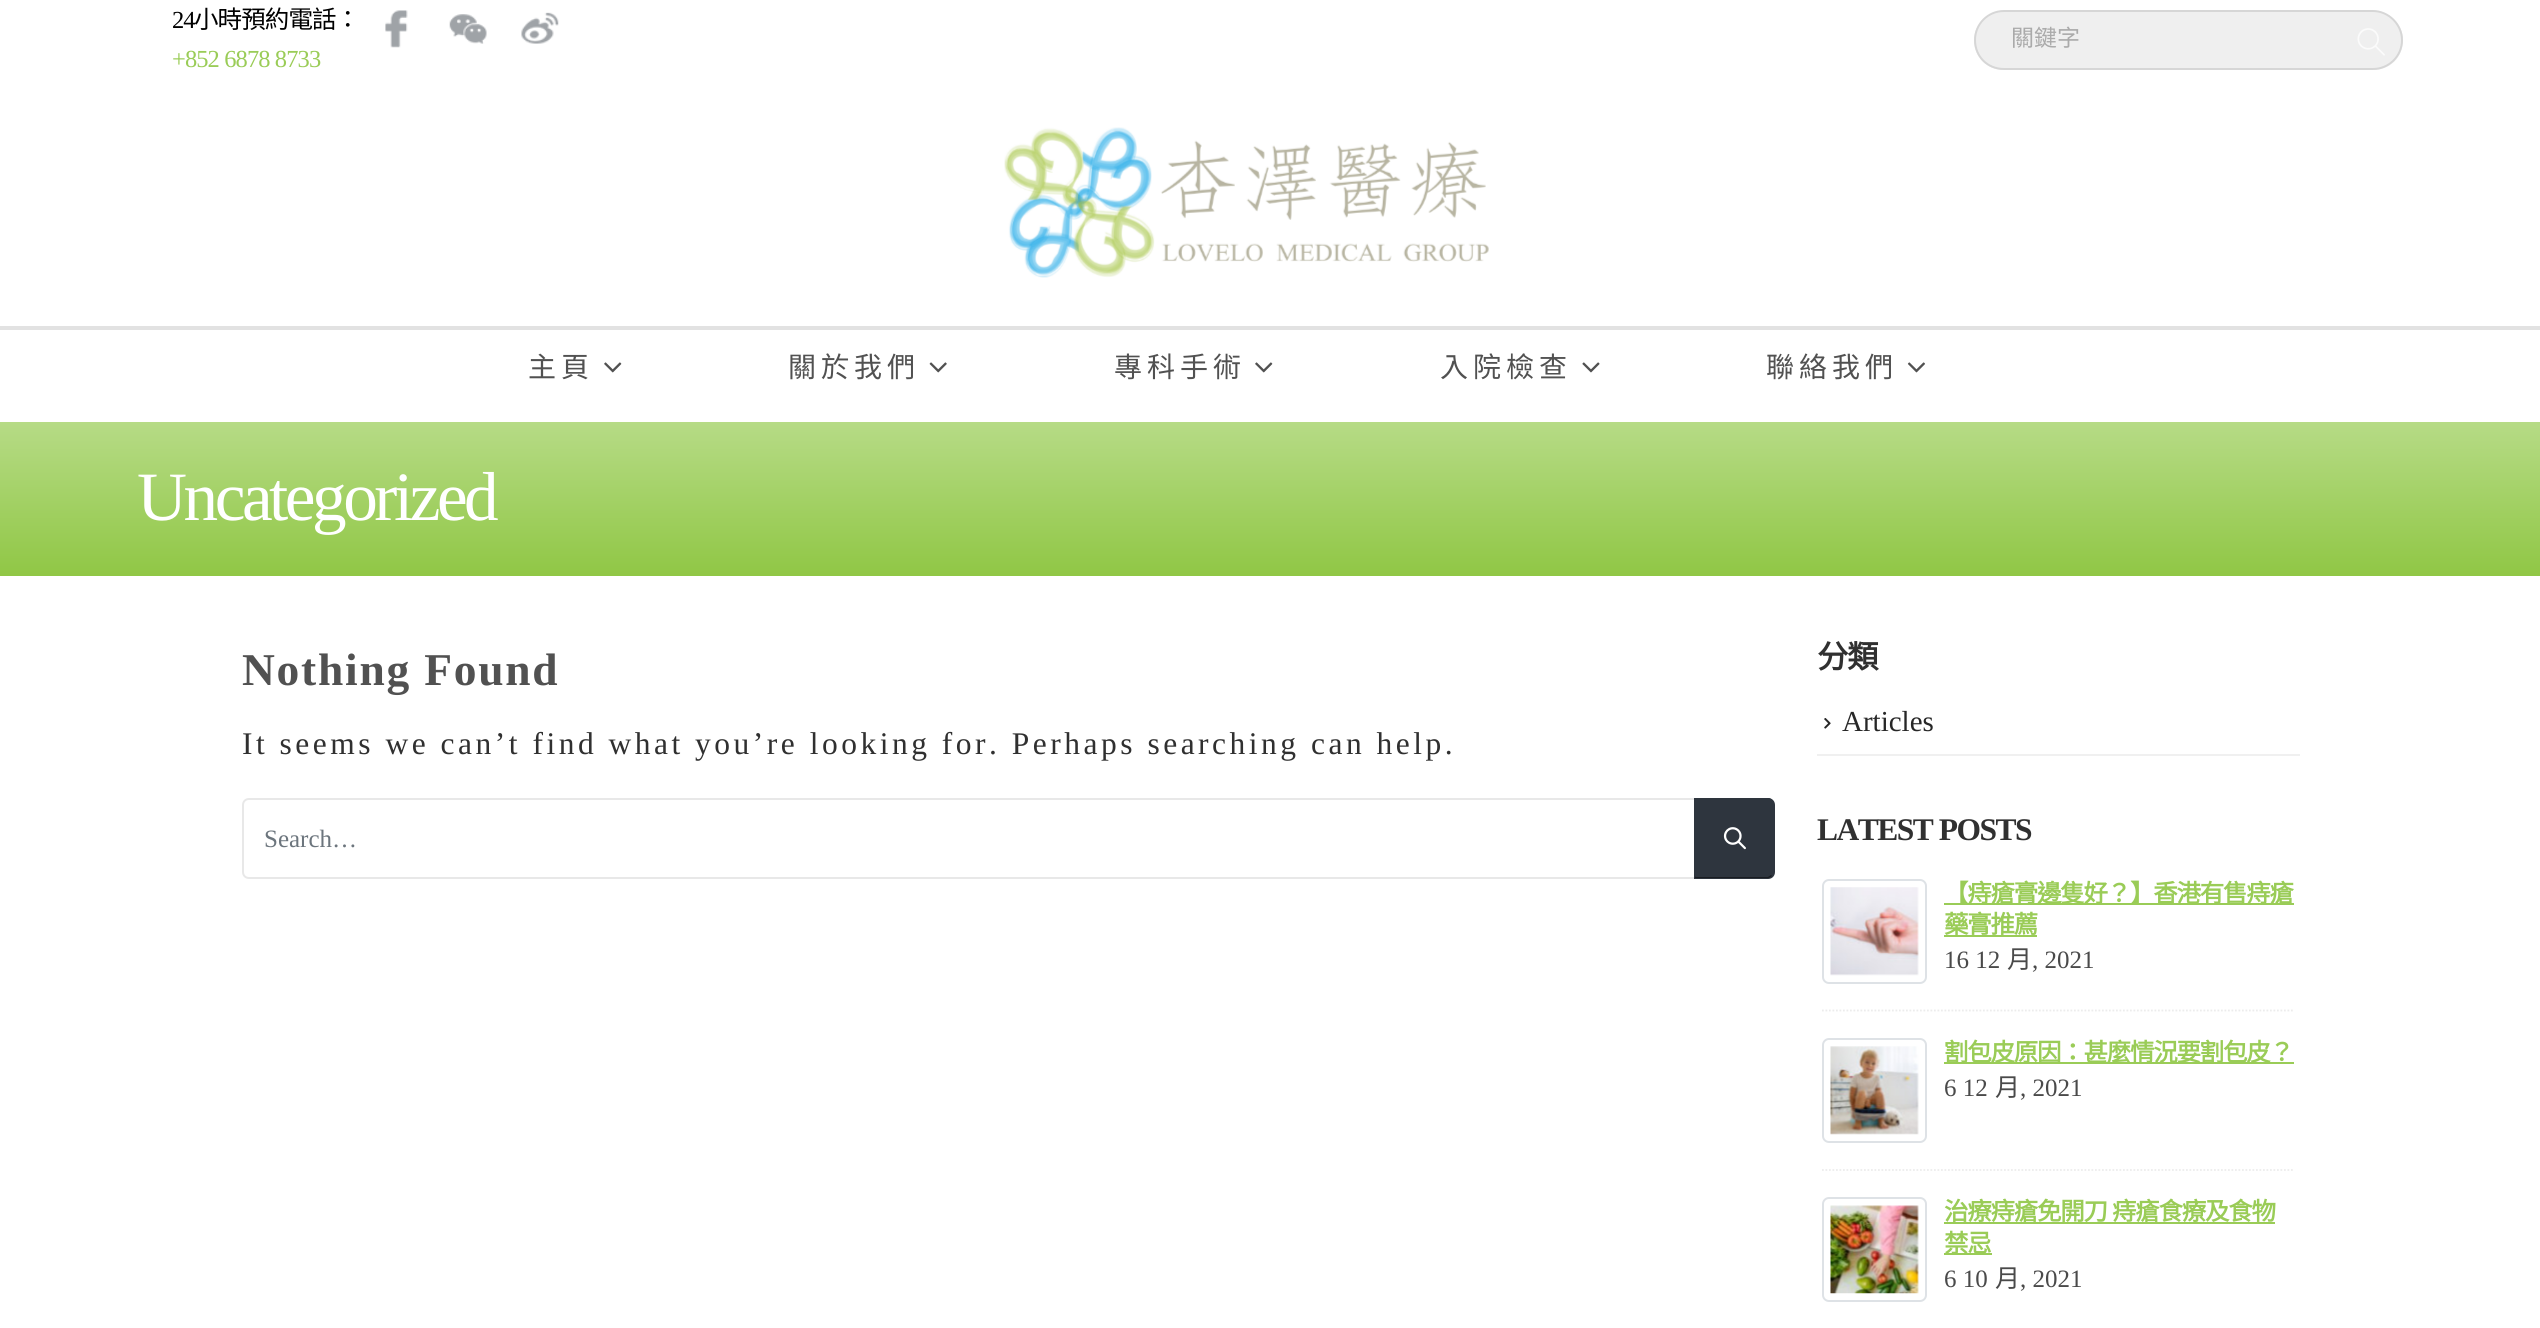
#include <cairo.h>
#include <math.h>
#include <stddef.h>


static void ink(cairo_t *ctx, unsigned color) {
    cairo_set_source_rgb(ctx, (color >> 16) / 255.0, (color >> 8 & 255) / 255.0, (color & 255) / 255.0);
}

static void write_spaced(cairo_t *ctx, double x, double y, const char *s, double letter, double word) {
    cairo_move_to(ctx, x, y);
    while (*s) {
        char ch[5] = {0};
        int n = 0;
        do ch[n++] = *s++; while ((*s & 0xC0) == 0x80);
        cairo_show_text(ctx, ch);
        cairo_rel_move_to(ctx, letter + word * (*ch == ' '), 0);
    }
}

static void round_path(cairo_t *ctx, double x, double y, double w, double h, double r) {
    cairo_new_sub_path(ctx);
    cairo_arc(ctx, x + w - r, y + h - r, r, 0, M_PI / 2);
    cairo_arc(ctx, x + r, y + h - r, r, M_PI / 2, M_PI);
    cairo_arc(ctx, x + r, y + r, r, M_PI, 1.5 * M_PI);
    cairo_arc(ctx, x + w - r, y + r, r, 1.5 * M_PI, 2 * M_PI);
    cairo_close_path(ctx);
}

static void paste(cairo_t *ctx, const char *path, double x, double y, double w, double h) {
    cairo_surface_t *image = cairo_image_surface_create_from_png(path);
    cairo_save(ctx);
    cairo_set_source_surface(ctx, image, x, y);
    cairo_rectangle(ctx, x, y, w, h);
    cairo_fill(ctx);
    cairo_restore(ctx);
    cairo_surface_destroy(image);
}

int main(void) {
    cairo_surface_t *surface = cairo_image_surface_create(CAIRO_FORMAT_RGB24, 2540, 1328);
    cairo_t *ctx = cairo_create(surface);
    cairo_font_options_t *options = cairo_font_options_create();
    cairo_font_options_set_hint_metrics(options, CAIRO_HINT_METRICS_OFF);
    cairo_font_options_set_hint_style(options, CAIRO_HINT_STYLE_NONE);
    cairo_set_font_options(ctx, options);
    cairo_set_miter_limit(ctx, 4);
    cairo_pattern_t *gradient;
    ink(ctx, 0xFFFFFF);
    cairo_paint(ctx);
    cairo_select_font_face(ctx, "Liberation Serif", CAIRO_FONT_SLANT_NORMAL, CAIRO_FONT_WEIGHT_NORMAL);
    cairo_set_font_size(ctx, 24.5);
    ink(ctx, 0x000000);
    write_spaced(ctx, 172, 28, "24", -0.9, 0);
    cairo_select_font_face(ctx, "Noto Sans CJK HK", CAIRO_FONT_SLANT_NORMAL, CAIRO_FONT_WEIGHT_NORMAL);
    write_spaced(ctx, 194, 28, "小時預約電話：", -0.9, 0);
    cairo_select_font_face(ctx, "Liberation Serif", CAIRO_FONT_SLANT_NORMAL, CAIRO_FONT_WEIGHT_NORMAL);
    ink(ctx, 0x9ACC57);
    write_spaced(ctx, 172, 67, "+852 6878 8733", -0.9, 0);
    paste(ctx, "media/1.png", 385, 10, 23, 38);
    paste(ctx, "media/2.png", 449, 14, 38, 30);
    paste(ctx, "media/3.png", 521, 12, 38, 32);
    ink(ctx, 0xEFEFEF);
    cairo_new_path(ctx);
    cairo_move_to(ctx, 2003.5, 11);
    cairo_line_to(ctx, 2324, 11);
    cairo_line_to(ctx, 2324, 70);
    cairo_line_to(ctx, 2003.5, 70);
    cairo_curve_to(ctx, 1987, 70, 1974, 57, 1974, 40.5);
    cairo_curve_to(ctx, 1974, 24, 1987, 11, 2003.5, 11);
    cairo_close_path(ctx);
    cairo_fill(ctx);
    ink(ctx, 0xD6D6D6);
    cairo_set_fill_rule(ctx, CAIRO_FILL_RULE_EVEN_ODD);
    cairo_new_path(ctx);
    cairo_move_to(ctx, 2004, 10);
    cairo_line_to(ctx, 2324, 10);
    cairo_line_to(ctx, 2324, 70);
    cairo_line_to(ctx, 2004, 70);
    cairo_curve_to(ctx, 1987, 70, 1974, 57, 1974, 40);
    cairo_curve_to(ctx, 1974, 24, 1987, 10, 2004, 10);
    cairo_close_path(ctx);
    cairo_move_to(ctx, 2004, 12);
    cairo_line_to(ctx, 2324, 12);
    cairo_line_to(ctx, 2324, 68);
    cairo_line_to(ctx, 2004, 68);
    cairo_curve_to(ctx, 1988, 68, 1976, 56, 1976, 40);
    cairo_curve_to(ctx, 1976, 25, 1988, 12, 2004, 12);
    cairo_close_path(ctx);
    cairo_fill(ctx);
    cairo_select_font_face(ctx, "Noto Sans CJK HK", CAIRO_FONT_SLANT_NORMAL, CAIRO_FONT_WEIGHT_NORMAL);
    cairo_set_font_size(ctx, 23);
    ink(ctx, 0xAAAAAA);
    cairo_move_to(ctx, 2011, 46);
    cairo_show_text(ctx, "關鍵字");
    ink(ctx, 0xEFEFEF);
    cairo_new_path(ctx);
    cairo_move_to(ctx, 2324, 11);
    cairo_line_to(ctx, 2373.5, 11);
    cairo_curve_to(ctx, 2390, 11, 2403, 24, 2403, 40.5);
    cairo_curve_to(ctx, 2403, 57, 2390, 70, 2373.5, 70);
    cairo_line_to(ctx, 2324, 70);
    cairo_close_path(ctx);
    cairo_fill(ctx);
    ink(ctx, 0xD6D6D6);
    cairo_new_path(ctx);
    cairo_move_to(ctx, 2324, 10);
    cairo_line_to(ctx, 2373, 10);
    cairo_curve_to(ctx, 2389, 10, 2403, 24, 2403, 40);
    cairo_curve_to(ctx, 2403, 57, 2389, 70, 2373, 70);
    cairo_line_to(ctx, 2324, 70);
    cairo_close_path(ctx);
    cairo_move_to(ctx, 2324, 12);
    cairo_line_to(ctx, 2373, 12);
    cairo_curve_to(ctx, 2388, 12, 2401, 25, 2401, 40);
    cairo_curve_to(ctx, 2401, 56, 2388, 68, 2373, 68);
    cairo_line_to(ctx, 2324, 68);
    cairo_close_path(ctx);
    cairo_fill(ctx);
    paste(ctx, "media/4.png", 2357, 28, 28, 28);
    paste(ctx, "media/5.png", 1004, 127, 485, 151);
    ink(ctx, 0xE2E2E2);
    cairo_rectangle(ctx, 0, 326, 2540, 4);
    cairo_fill(ctx);
    cairo_set_font_size(ctx, 28);
    ink(ctx, 0x515151);
    write_spaced(ctx, 528, 377, "主頁", 5, 0);
    paste(ctx, "media/6.png", 604, 362, 18, 11);
    write_spaced(ctx, 788, 377, "關於我們", 5, 0);
    paste(ctx, "media/7.png", 929, 362, 18, 11);
    write_spaced(ctx, 1114, 377, "專科手術", 5, 0);
    paste(ctx, "media/6.png", 1255, 362, 18, 11);
    write_spaced(ctx, 1440, 377, "入院檢查", 5, 0);
    paste(ctx, "media/8.png", 1582, 362, 18, 11);
    write_spaced(ctx, 1766, 377, "聯絡我們", 5, 0);
    paste(ctx, "media/9.png", 1907, 362, 18, 11);
    gradient = cairo_pattern_create_linear(1271, 422, 1271, 576);
    cairo_pattern_add_color_stop_rgba(gradient, 0, 0.714, 0.859, 0.525, 1);
    cairo_pattern_add_color_stop_rgba(gradient, 1, 0.565, 0.78, 0.271, 1);
    cairo_set_source(ctx, gradient);
    cairo_pattern_destroy(gradient);
    cairo_rectangle(ctx, 0, 422, 2540, 154);
    cairo_fill(ctx);
    cairo_select_font_face(ctx, "Liberation Serif", CAIRO_FONT_SLANT_NORMAL, CAIRO_FONT_WEIGHT_NORMAL);
    cairo_set_font_size(ctx, 69.25);
    ink(ctx, 0xFFFFFF);
    write_spaced(ctx, 137, 520, "Uncategorized", -3.5, 0);
    cairo_select_font_face(ctx, "Liberation Serif", CAIRO_FONT_SLANT_NORMAL, CAIRO_FONT_WEIGHT_BOLD);
    cairo_set_font_size(ctx, 45.5);
    ink(ctx, 0x515151);
    write_spaced(ctx, 242, 685, "Nothing Found", 1.75, 0);
    cairo_select_font_face(ctx, "Liberation Serif", CAIRO_FONT_SLANT_NORMAL, CAIRO_FONT_WEIGHT_NORMAL);
    cairo_set_font_size(ctx, 31.5);
    ink(ctx, 0x303030);
    write_spaced(ctx, 242, 754, "It seems we can’t find what you’re looking for. Perhaps searching can help.", 3.5, 0);
    cairo_new_path(ctx);
    cairo_move_to(ctx, 249, 799);
    cairo_line_to(ctx, 1695, 799);
    cairo_line_to(ctx, 1695, 878);
    cairo_line_to(ctx, 249, 878);
    cairo_curve_to(ctx, 245.5, 878, 243, 875.5, 243, 872);
    cairo_line_to(ctx, 243, 805);
    cairo_curve_to(ctx, 243, 801.5, 245.5, 799, 249, 799);
    cairo_close_path(ctx);
    ink(ctx, 0xE8E8E8);
    cairo_stroke(ctx);
    cairo_set_font_size(ctx, 25);
    ink(ctx, 0x6C757D);
    cairo_move_to(ctx, 264, 847);
    cairo_show_text(ctx, "Search…");
    ink(ctx, 0x2E353E);
    cairo_new_path(ctx);
    cairo_move_to(ctx, 1694, 798);
    cairo_line_to(ctx, 1768, 798);
    cairo_curve_to(ctx, 1772, 798, 1775, 801, 1775, 805);
    cairo_line_to(ctx, 1775, 872);
    cairo_curve_to(ctx, 1775, 876, 1772, 879, 1768, 879);
    cairo_line_to(ctx, 1694, 879);
    cairo_close_path(ctx);
    cairo_fill(ctx);
    cairo_set_fill_rule(ctx, CAIRO_FILL_RULE_WINDING);
    cairo_new_path(ctx);
    cairo_move_to(ctx, 1694, 798);
    cairo_line_to(ctx, 1696, 800);
    cairo_line_to(ctx, 1768, 800);
    cairo_curve_to(ctx, 1769, 800, 1770, 800, 1771, 801);
    cairo_line_to(ctx, 1772, 800);
    cairo_curve_to(ctx, 1771, 799, 1770, 798, 1768, 798);
    cairo_close_path(ctx);
    cairo_fill(ctx);
    ink(ctx, 0x191C21);
    cairo_new_path(ctx);
    cairo_move_to(ctx, 1772, 876);
    cairo_line_to(ctx, 1769, 878);
    cairo_line_to(ctx, 1694, 878);
    cairo_line_to(ctx, 1696, 876);
    cairo_line_to(ctx, 1696, 877);
    cairo_line_to(ctx, 1768, 877);
    cairo_line_to(ctx, 1771, 875);
    cairo_close_path(ctx);
    cairo_fill(ctx);
    ink(ctx, 0x2E353E);
    cairo_new_path(ctx);
    cairo_move_to(ctx, 1696, 800);
    cairo_line_to(ctx, 1694, 798);
    cairo_line_to(ctx, 1694, 878);
    cairo_line_to(ctx, 1696, 876);
    cairo_close_path(ctx);
    cairo_fill(ctx);
    paste(ctx, "media/10.png", 1723, 827, 23, 23);
    cairo_select_font_face(ctx, "Noto Sans CJK HK", CAIRO_FONT_SLANT_NORMAL, CAIRO_FONT_WEIGHT_BOLD);
    cairo_set_font_size(ctx, 31.5);
    ink(ctx, 0x303030);
    write_spaced(ctx, 1817, 668, "分類", -1.5, 0);
    ink(ctx, 0xF0F0F0);
    cairo_rectangle(ctx, 1817, 754, 483, 2);
    cairo_fill(ctx);
    paste(ctx, "media/11.png", 1824, 718, 7, 11);
    cairo_select_font_face(ctx, "Liberation Serif", CAIRO_FONT_SLANT_NORMAL, CAIRO_FONT_WEIGHT_NORMAL);
    cairo_set_font_size(ctx, 29);
    ink(ctx, 0x272727);
    cairo_move_to(ctx, 1842, 731);
    cairo_show_text(ctx, "Articles");
    cairo_select_font_face(ctx, "Liberation Serif", CAIRO_FONT_SLANT_NORMAL, CAIRO_FONT_WEIGHT_BOLD);
    cairo_set_font_size(ctx, 31.5);
    ink(ctx, 0x303030);
    write_spaced(ctx, 1817, 840, "LATEST POSTS", -1.5, 0);
    round_path(ctx, 1823, 880, 103, 103, 6);
    ink(ctx, 0xDEE2E6);
    cairo_stroke(ctx);
    paste(ctx, "media/12.png", 1830, 887, 89, 89);
    ink(ctx, 0x9ACC57);
    cairo_rectangle(ctx, 1944, 903, 350, 2);
    cairo_fill(ctx);
    cairo_select_font_face(ctx, "Noto Sans CJK HK", CAIRO_FONT_SLANT_NORMAL, CAIRO_FONT_WEIGHT_BOLD);
    cairo_set_font_size(ctx, 24.5);
    write_spaced(ctx, 1944, 902, "【痔瘡膏邊隻好？】香港有售痔瘡", -1.25, 0);
    write_spaced(ctx, 1944, 933, "藥膏推薦", -1.25, 0);
    cairo_rectangle(ctx, 1944, 935, 93, 2);
    cairo_fill(ctx);
    cairo_select_font_face(ctx, "Liberation Serif", CAIRO_FONT_SLANT_NORMAL, CAIRO_FONT_WEIGHT_NORMAL);
    cairo_set_font_size(ctx, 25);
    ink(ctx, 0x4A4A4A);
    cairo_move_to(ctx, 1944, 968);
    cairo_show_text(ctx, "16 12");
    cairo_select_font_face(ctx, "Noto Sans CJK HK", CAIRO_FONT_SLANT_NORMAL, CAIRO_FONT_WEIGHT_NORMAL);
    cairo_move_to(ctx, 2007, 968);
    cairo_show_text(ctx, "月");
    cairo_select_font_face(ctx, "Liberation Serif", CAIRO_FONT_SLANT_NORMAL, CAIRO_FONT_WEIGHT_NORMAL);
    cairo_move_to(ctx, 2032, 968);
    cairo_show_text(ctx, ", 2021");
    cairo_new_path(ctx);
    cairo_move_to(ctx, 1822, 1010.5);
    cairo_line_to(ctx, 2294, 1010.5);
    ink(ctx, 0xECECEC);
    cairo_set_line_width(ctx, 1.8);
    cairo_set_dash(ctx, (double[]){1.75, 1.75}, 2, 0);
    cairo_stroke(ctx);
    round_path(ctx, 1823, 1039, 103, 103, 6);
    ink(ctx, 0xDEE2E6);
    cairo_set_line_width(ctx, 2);
    cairo_set_dash(ctx, NULL, 0, 0);
    cairo_stroke(ctx);
    paste(ctx, "media/13.png", 1830, 1046, 89, 89);
    ink(ctx, 0x9ACC57);
    cairo_rectangle(ctx, 1944, 1062, 350, 2);
    cairo_fill(ctx);
    cairo_select_font_face(ctx, "Noto Sans CJK HK", CAIRO_FONT_SLANT_NORMAL, CAIRO_FONT_WEIGHT_BOLD);
    cairo_set_font_size(ctx, 24.5);
    write_spaced(ctx, 1944, 1061, "割包皮原因：甚麼情況要割包皮？", -1.25, 0);
    cairo_select_font_face(ctx, "Liberation Serif", CAIRO_FONT_SLANT_NORMAL, CAIRO_FONT_WEIGHT_NORMAL);
    cairo_set_font_size(ctx, 25);
    ink(ctx, 0x4A4A4A);
    cairo_move_to(ctx, 1944, 1096);
    cairo_show_text(ctx, "6 12");
    cairo_select_font_face(ctx, "Noto Sans CJK HK", CAIRO_FONT_SLANT_NORMAL, CAIRO_FONT_WEIGHT_NORMAL);
    cairo_move_to(ctx, 1995, 1096);
    cairo_show_text(ctx, "月");
    cairo_select_font_face(ctx, "Liberation Serif", CAIRO_FONT_SLANT_NORMAL, CAIRO_FONT_WEIGHT_NORMAL);
    cairo_move_to(ctx, 2020, 1096);
    cairo_show_text(ctx, ", 2021");
    cairo_new_path(ctx);
    cairo_move_to(ctx, 1822, 1170);
    cairo_line_to(ctx, 2294, 1170);
    ink(ctx, 0xECECEC);
    cairo_set_line_width(ctx, 1.8);
    cairo_set_dash(ctx, (double[]){1.75, 1.75}, 2, 0);
    cairo_stroke(ctx);
    round_path(ctx, 1823, 1198, 103, 103, 6);
    ink(ctx, 0xDEE2E6);
    cairo_set_line_width(ctx, 2);
    cairo_set_dash(ctx, NULL, 0, 0);
    cairo_stroke(ctx);
    paste(ctx, "media/14.png", 1830, 1205, 89, 89);
    ink(ctx, 0x9ACC57);
    cairo_rectangle(ctx, 1944, 1222, 331, 2);
    cairo_fill(ctx);
    cairo_select_font_face(ctx, "Noto Sans CJK HK", CAIRO_FONT_SLANT_NORMAL, CAIRO_FONT_WEIGHT_BOLD);
    cairo_set_font_size(ctx, 24.5);
    write_spaced(ctx, 1944, 1220, "治療痔瘡免開刀 痔瘡食療及食物", -1.25, 1);
    cairo_rectangle(ctx, 1944, 1253, 48, 2);
    cairo_fill(ctx);
    write_spaced(ctx, 1944, 1252, "禁忌", -1.25, 0);
    cairo_select_font_face(ctx, "Liberation Serif", CAIRO_FONT_SLANT_NORMAL, CAIRO_FONT_WEIGHT_NORMAL);
    cairo_set_font_size(ctx, 25);
    ink(ctx, 0x4A4A4A);
    cairo_move_to(ctx, 1944, 1287);
    cairo_show_text(ctx, "6 10");
    cairo_select_font_face(ctx, "Noto Sans CJK HK", CAIRO_FONT_SLANT_NORMAL, CAIRO_FONT_WEIGHT_NORMAL);
    cairo_move_to(ctx, 1995, 1287);
    cairo_show_text(ctx, "月");
    cairo_select_font_face(ctx, "Liberation Serif", CAIRO_FONT_SLANT_NORMAL, CAIRO_FONT_WEIGHT_NORMAL);
    cairo_move_to(ctx, 2020, 1287);
    cairo_show_text(ctx, ", 2021");
    cairo_surface_write_to_png(surface, "image.png");
    cairo_font_options_destroy(options);
    cairo_destroy(ctx);
    cairo_surface_destroy(surface);
    return 0;
}
